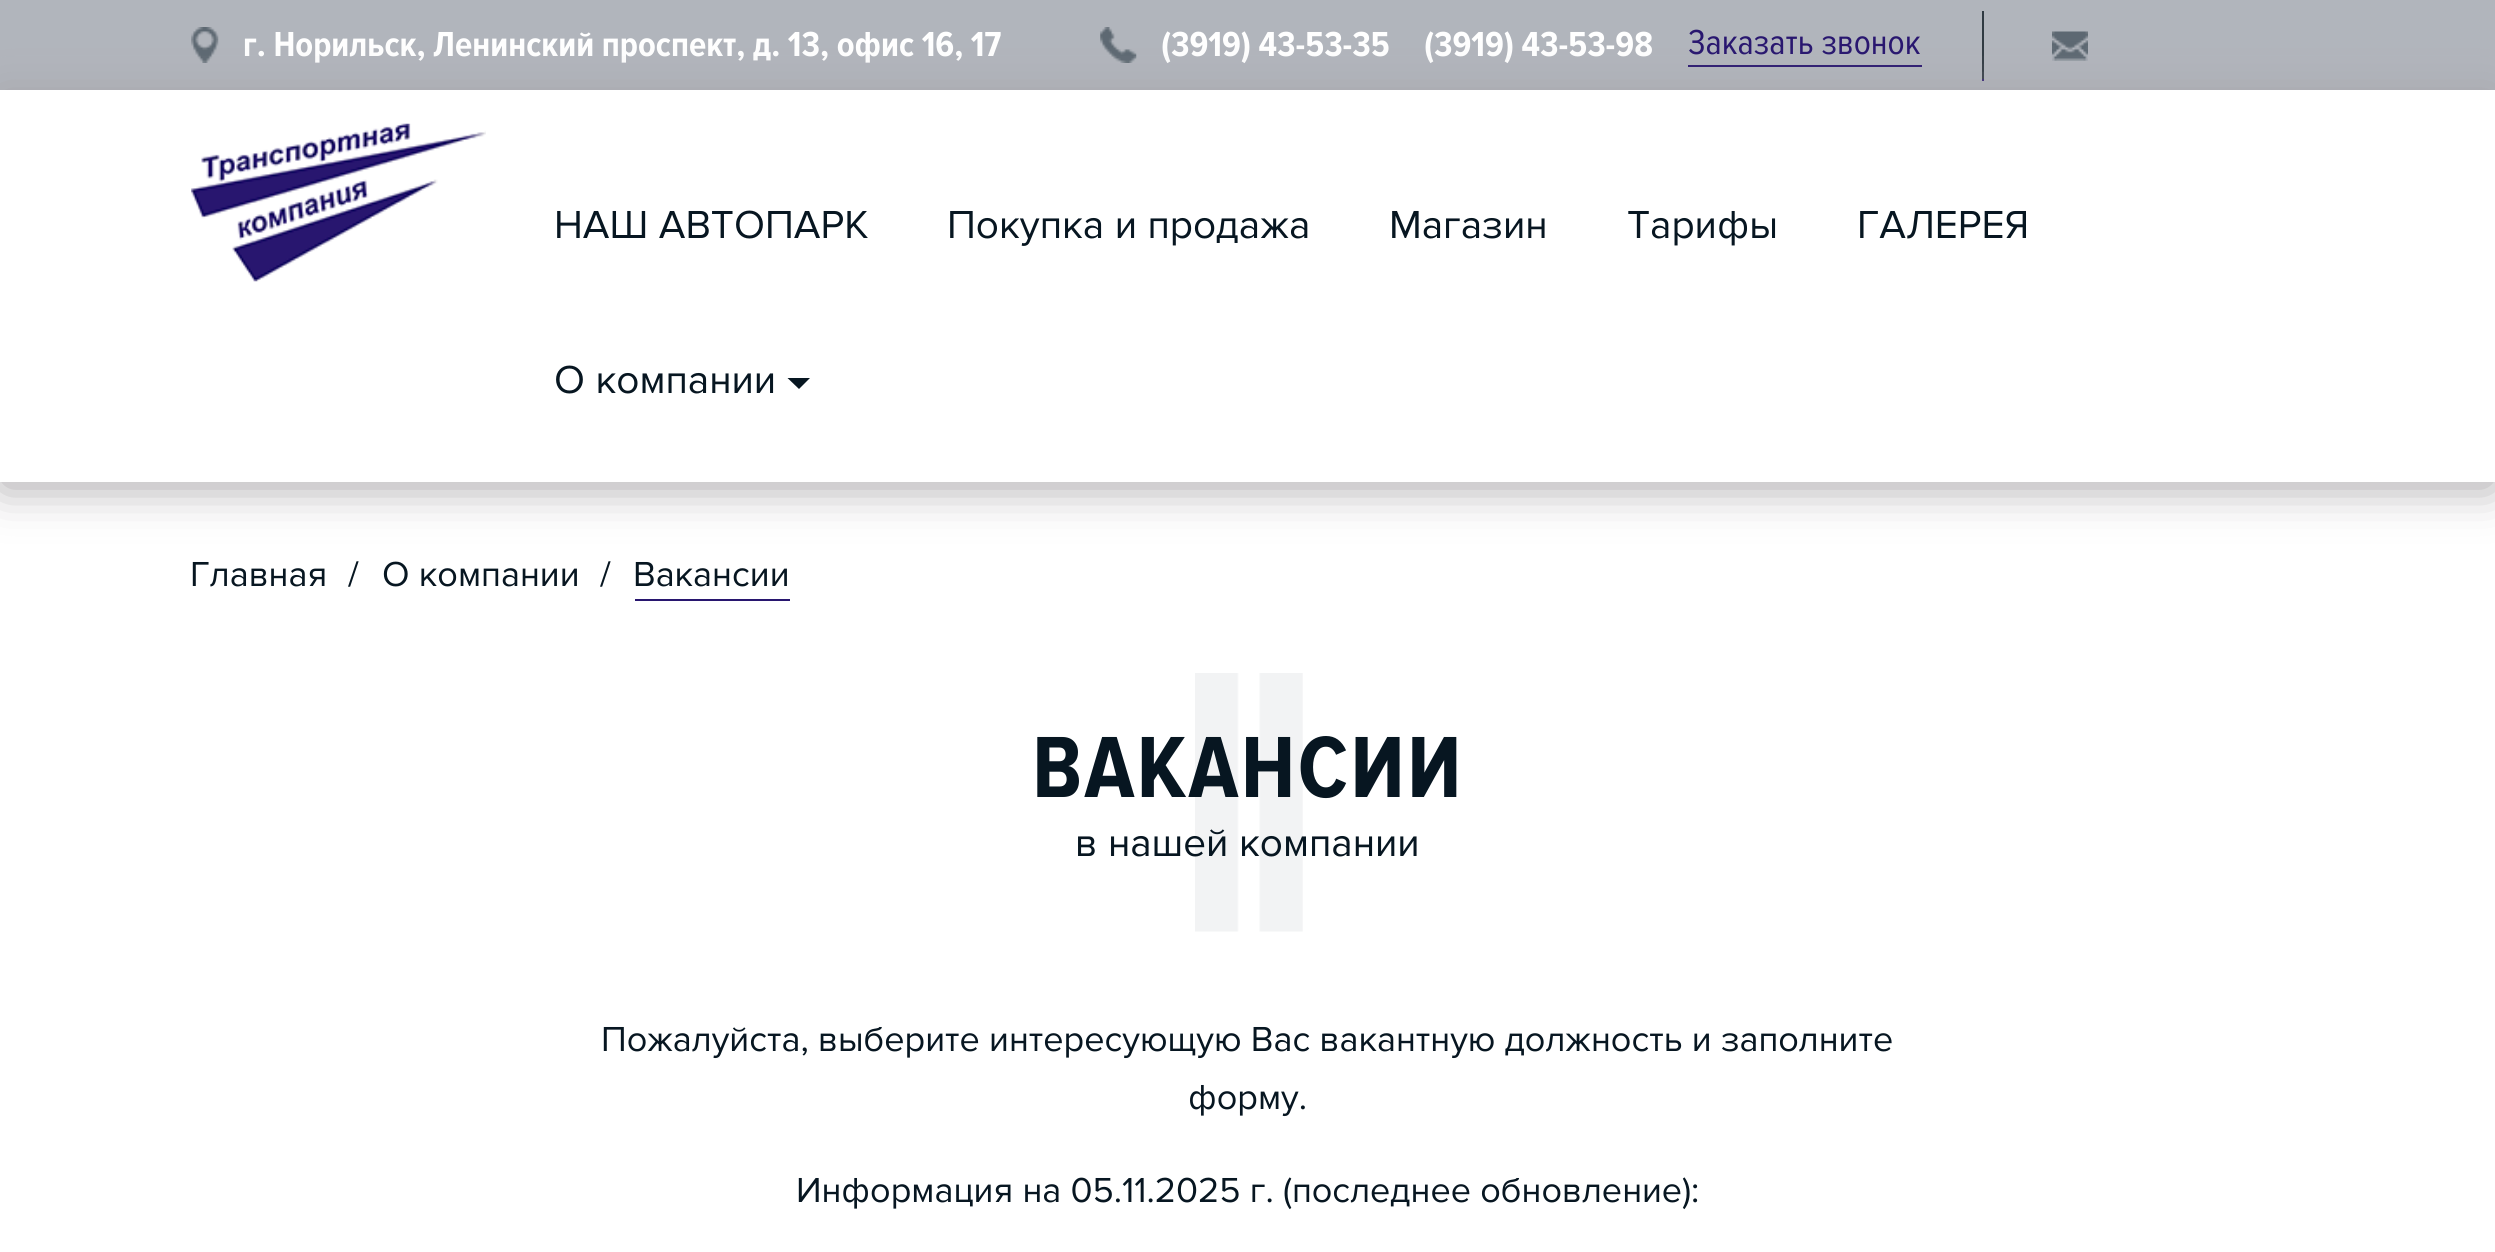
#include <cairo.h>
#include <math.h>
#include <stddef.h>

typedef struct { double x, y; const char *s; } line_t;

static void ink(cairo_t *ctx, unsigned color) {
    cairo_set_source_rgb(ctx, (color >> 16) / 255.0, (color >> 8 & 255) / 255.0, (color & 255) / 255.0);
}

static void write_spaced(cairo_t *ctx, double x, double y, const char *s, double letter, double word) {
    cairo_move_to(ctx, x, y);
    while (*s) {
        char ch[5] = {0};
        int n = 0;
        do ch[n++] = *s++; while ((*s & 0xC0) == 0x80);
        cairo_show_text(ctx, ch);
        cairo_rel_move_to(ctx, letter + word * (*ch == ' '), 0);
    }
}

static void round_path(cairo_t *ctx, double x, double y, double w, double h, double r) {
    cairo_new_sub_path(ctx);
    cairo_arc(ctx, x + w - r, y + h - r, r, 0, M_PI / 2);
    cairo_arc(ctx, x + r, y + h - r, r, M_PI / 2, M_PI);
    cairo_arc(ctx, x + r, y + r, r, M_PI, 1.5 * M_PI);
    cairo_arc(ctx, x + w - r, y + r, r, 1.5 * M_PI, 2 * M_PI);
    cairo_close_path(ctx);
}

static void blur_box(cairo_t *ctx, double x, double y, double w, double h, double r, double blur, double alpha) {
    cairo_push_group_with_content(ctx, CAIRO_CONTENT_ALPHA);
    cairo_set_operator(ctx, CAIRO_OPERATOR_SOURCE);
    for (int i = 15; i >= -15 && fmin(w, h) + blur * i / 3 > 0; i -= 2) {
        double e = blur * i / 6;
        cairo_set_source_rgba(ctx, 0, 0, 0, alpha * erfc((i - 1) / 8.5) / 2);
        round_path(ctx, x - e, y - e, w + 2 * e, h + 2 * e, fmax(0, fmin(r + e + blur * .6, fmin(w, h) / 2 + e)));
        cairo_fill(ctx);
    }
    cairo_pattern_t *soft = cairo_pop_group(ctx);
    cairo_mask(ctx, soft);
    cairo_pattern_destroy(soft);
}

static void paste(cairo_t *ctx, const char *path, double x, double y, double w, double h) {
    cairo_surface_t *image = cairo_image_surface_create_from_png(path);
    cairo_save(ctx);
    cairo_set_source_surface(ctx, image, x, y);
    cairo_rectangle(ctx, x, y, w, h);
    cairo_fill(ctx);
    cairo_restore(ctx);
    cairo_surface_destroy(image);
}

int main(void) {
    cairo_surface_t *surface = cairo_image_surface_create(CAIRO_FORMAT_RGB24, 2495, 1252);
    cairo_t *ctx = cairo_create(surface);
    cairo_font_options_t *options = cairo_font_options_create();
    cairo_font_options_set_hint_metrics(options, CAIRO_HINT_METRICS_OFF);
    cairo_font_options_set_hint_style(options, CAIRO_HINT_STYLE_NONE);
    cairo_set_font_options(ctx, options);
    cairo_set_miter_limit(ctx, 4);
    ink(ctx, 0xB1B5BC);
    cairo_paint(ctx);
    paste(ctx, "media/1.png", 191, 27, 28, 36);
    cairo_select_font_face(ctx, "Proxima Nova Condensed", CAIRO_FONT_SLANT_NORMAL, CAIRO_FONT_WEIGHT_BOLD);
    cairo_set_font_size(ctx, 36);
    ink(ctx, 0xFFFFFF);
    cairo_move_to(ctx, 243, 56);
    cairo_show_text(ctx, "г. Норильск, Ленинский проспект, д. 13, офис 16, 17");
    paste(ctx, "media/2.png", 1100, 27, 37, 36);
    cairo_move_to(ctx, 1161, 56);
    cairo_show_text(ctx, "(3919) 43-53-35");
    cairo_move_to(ctx, 1424, 56);
    cairo_show_text(ctx, "(3919) 43-53-98");
    ink(ctx, 0x28166F);
    cairo_rectangle(ctx, 1688, 65, 234, 2);
    cairo_fill(ctx);
    cairo_rectangle(ctx, 1982, 79, 2, 2);
    cairo_fill(ctx);
    cairo_select_font_face(ctx, "Proxima Nova Condensed", CAIRO_FONT_SLANT_NORMAL, CAIRO_FONT_WEIGHT_NORMAL);
    cairo_move_to(ctx, 1688, 54);
    cairo_show_text(ctx, "Заказать звонок");
    ink(ctx, 0x303A42);
    cairo_rectangle(ctx, 1982, 11, 2, 68);
    cairo_fill(ctx);
    paste(ctx, "media/3.png", 2052, 31, 36, 30);
    ink(ctx, 0xFFFFFF);
    cairo_rectangle(ctx, 0, 482, 2495, 770);
    cairo_fill(ctx);
    ink(ctx, 0xA3A0A3);
    blur_box(ctx, 2, 99, 2491, 387, 0, 23.5, 1);
    ink(ctx, 0xFFFFFF);
    cairo_rectangle(ctx, 0, 90, 2495, 392);
    cairo_fill(ctx);
    paste(ctx, "media/4.png", 191, 123, 295, 159);
    cairo_select_font_face(ctx, "Proxima Nova", CAIRO_FONT_SLANT_NORMAL, CAIRO_FONT_WEIGHT_NORMAL);
    cairo_set_font_size(ctx, 40.5);
    ink(ctx, 0x071621);
    {
        static const line_t items[] = {
            {554, 238, "НАШ АВТОПАРК"},
            {947, 238, "Покупка и продажа"},
            {1389, 238, "Магазин"},
            {1627, 238, "Тарифы"},
            {1857, 238, "ГАЛЕРЕЯ"},
            {554, 393, "О компании"},
        };
        for (size_t i = 0; i < sizeof items / sizeof *items; i++) {
            cairo_move_to(ctx, items[i].x, items[i].y);
            cairo_show_text(ctx, items[i].s);
        }
    }
    cairo_new_path(ctx);
    cairo_move_to(ctx, 787.5, 378);
    cairo_line_to(ctx, 810, 378);
    cairo_line_to(ctx, 799, 389);
    cairo_close_path(ctx);
    cairo_fill(ctx);
    cairo_set_font_size(ctx, 36);
    {
        static const line_t items[] = {
            {190, 586, "Главная"},
            {348, 586, "/"},
            {382, 586, "О компании"},
            {600, 586, "/"},
            {633, 586, "Вакансии"},
        };
        for (size_t i = 0; i < sizeof items / sizeof *items; i++) {
            cairo_move_to(ctx, items[i].x, items[i].y);
            cairo_show_text(ctx, items[i].s);
        }
    }
    ink(ctx, 0x28166F);
    cairo_rectangle(ctx, 635, 599, 155, 2);
    cairo_fill(ctx);
    paste(ctx, "media/5.png", 1195, 673, 108, 259);
    cairo_select_font_face(ctx, "Proxima Nova Condensed", CAIRO_FONT_SLANT_NORMAL, CAIRO_FONT_WEIGHT_BOLD);
    cairo_set_font_size(ctx, 90);
    ink(ctx, 0x071621);
    write_spaced(ctx, 1032, 797, "ВАКАНСИИ", 2.25, 0);
    cairo_select_font_face(ctx, "Proxima Nova", CAIRO_FONT_SLANT_NORMAL, CAIRO_FONT_WEIGHT_NORMAL);
    cairo_set_font_size(ctx, 40.5);
    cairo_move_to(ctx, 1075, 856);
    cairo_show_text(ctx, "в нашей компании");
    cairo_set_font_size(ctx, 36);
    {
        static const line_t items[] = {
            {601, 1051, "Пожалуйста, выберите интересующую Вас вакантную должность и заполните"},
            {1188, 1109, "форму."},
            {796, 1202, "Информация на 05.11.2025 г. (последнее обновление):"},
        };
        for (size_t i = 0; i < sizeof items / sizeof *items; i++) {
            cairo_move_to(ctx, items[i].x, items[i].y);
            cairo_show_text(ctx, items[i].s);
        }
    }
    cairo_surface_write_to_png(surface, "image.png");
    cairo_font_options_destroy(options);
    cairo_destroy(ctx);
    cairo_surface_destroy(surface);
    return 0;
}
